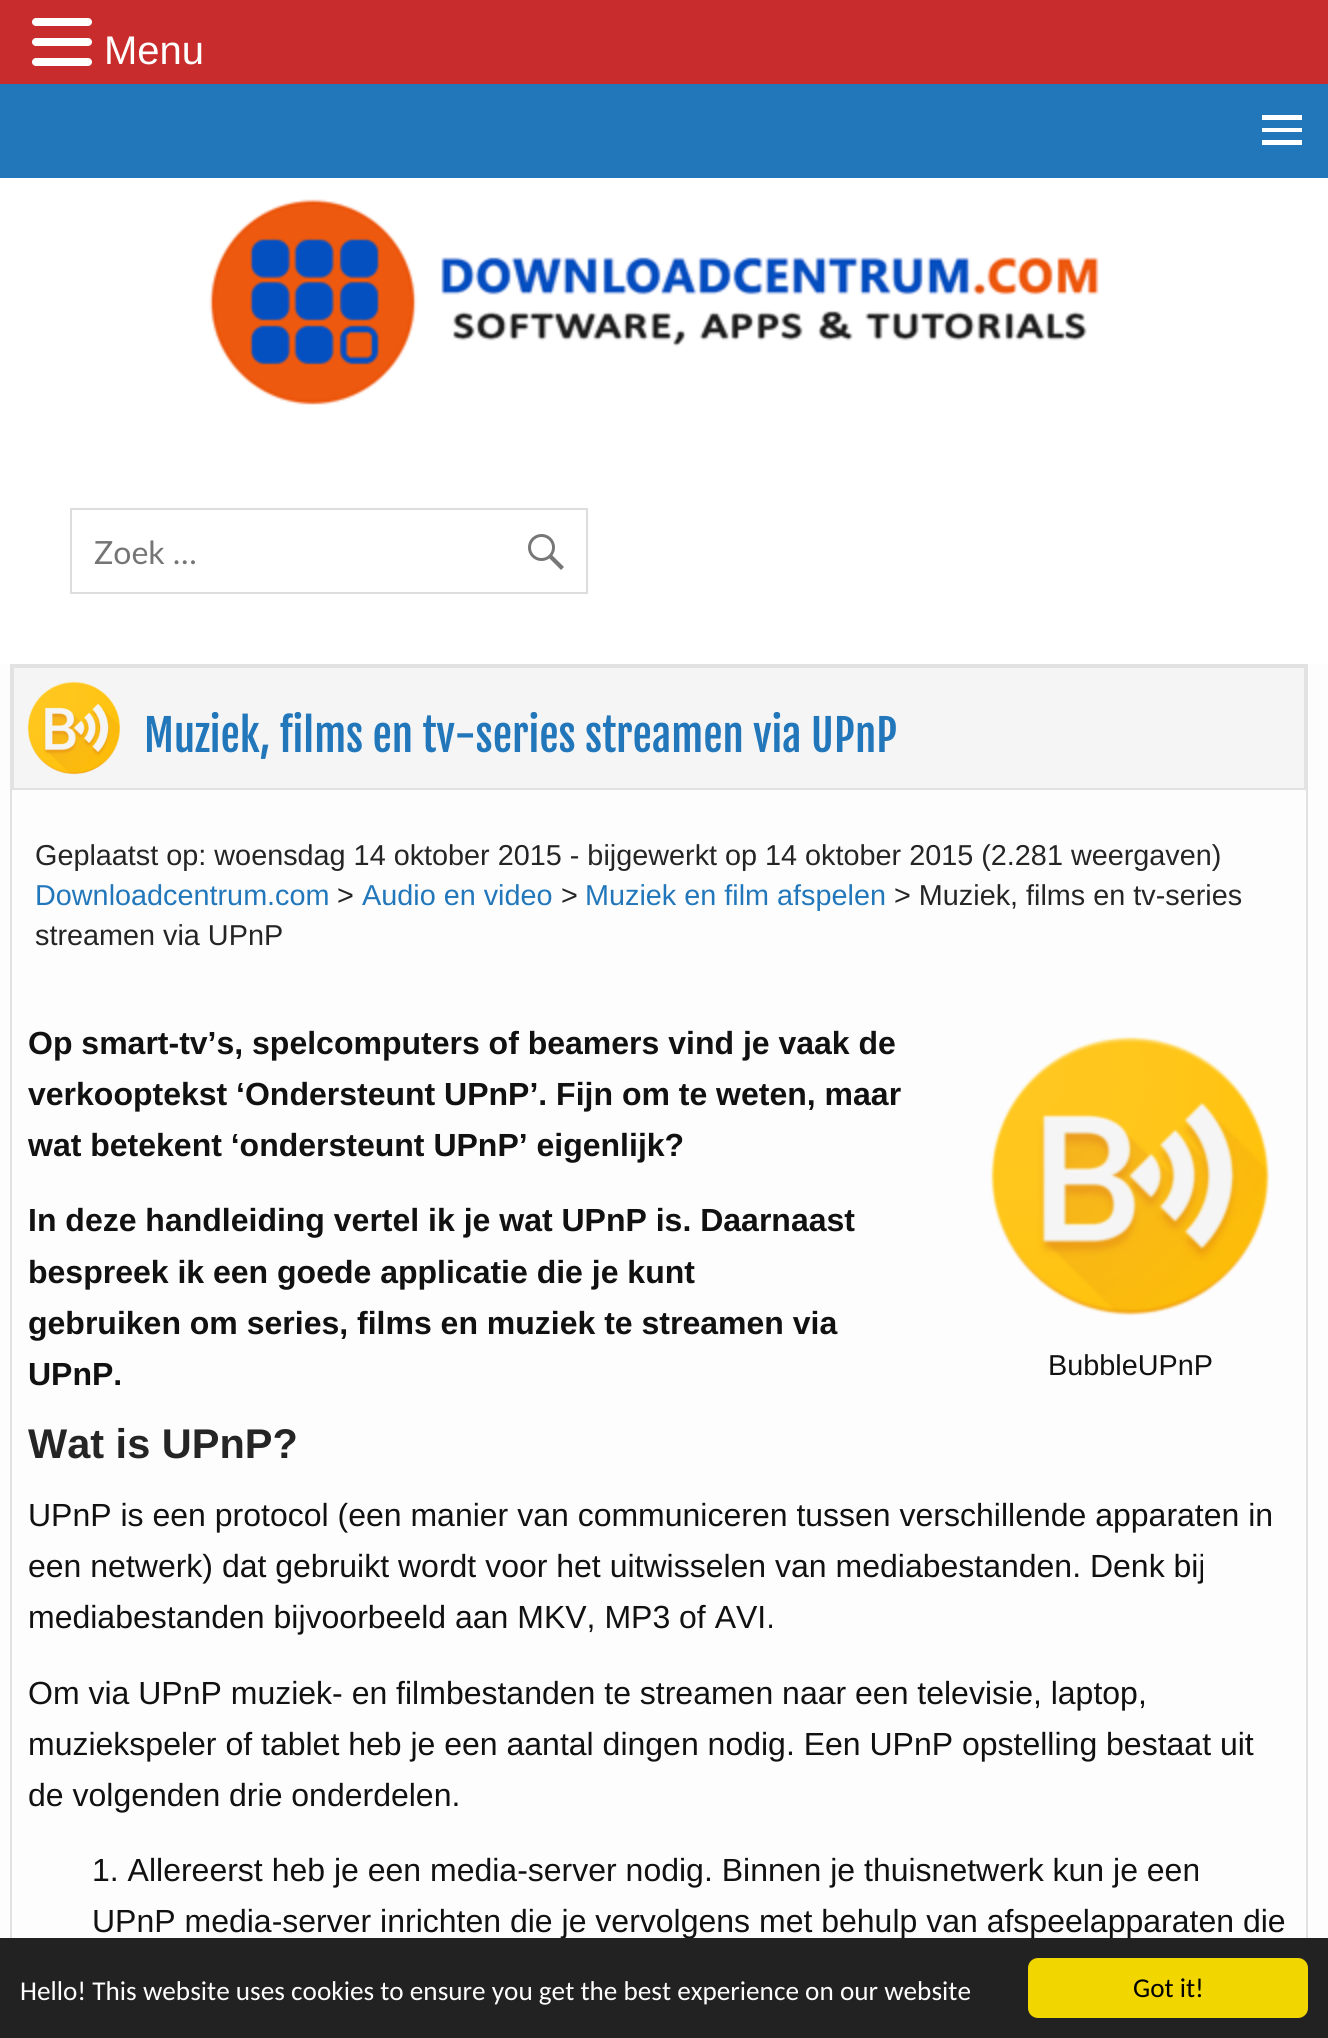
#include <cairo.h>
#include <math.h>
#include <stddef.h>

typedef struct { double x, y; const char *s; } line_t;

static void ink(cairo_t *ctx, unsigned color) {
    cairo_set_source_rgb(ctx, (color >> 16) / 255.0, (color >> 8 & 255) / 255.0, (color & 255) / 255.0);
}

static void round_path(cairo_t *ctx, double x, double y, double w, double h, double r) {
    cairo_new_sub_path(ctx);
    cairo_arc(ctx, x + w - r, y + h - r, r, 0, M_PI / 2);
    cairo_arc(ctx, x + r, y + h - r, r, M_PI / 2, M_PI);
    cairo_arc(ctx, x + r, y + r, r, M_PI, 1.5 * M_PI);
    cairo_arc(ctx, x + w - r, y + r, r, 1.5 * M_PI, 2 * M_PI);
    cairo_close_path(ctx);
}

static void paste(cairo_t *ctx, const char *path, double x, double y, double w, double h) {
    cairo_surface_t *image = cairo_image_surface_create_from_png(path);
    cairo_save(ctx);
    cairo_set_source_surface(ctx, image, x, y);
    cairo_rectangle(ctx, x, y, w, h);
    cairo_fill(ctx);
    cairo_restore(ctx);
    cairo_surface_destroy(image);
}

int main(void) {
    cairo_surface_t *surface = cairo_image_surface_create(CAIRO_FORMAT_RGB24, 1328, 2038);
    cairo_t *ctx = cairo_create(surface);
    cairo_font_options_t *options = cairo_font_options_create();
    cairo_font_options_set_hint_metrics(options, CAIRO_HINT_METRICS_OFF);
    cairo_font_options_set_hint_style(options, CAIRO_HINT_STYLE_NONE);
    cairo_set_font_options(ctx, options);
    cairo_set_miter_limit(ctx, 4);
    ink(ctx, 0x2277BB);
    cairo_paint(ctx);
    ink(ctx, 0xC92C2C);
    cairo_rectangle(ctx, 0, 0, 1328, 84);
    cairo_fill(ctx);
    ink(ctx, 0xFFFFFF);
    round_path(ctx, 32, 18, 60, 8, 4);
    cairo_fill(ctx);
    round_path(ctx, 32, 38, 60, 8, 4);
    cairo_fill(ctx);
    round_path(ctx, 32, 58, 60, 8, 4);
    cairo_fill(ctx);
    cairo_select_font_face(ctx, "Liberation Sans", CAIRO_FONT_SLANT_NORMAL, CAIRO_FONT_WEIGHT_NORMAL);
    cairo_set_font_size(ctx, 40);
    cairo_move_to(ctx, 104, 64);
    cairo_show_text(ctx, "Menu");
    cairo_new_path(ctx);
    cairo_move_to(ctx, 1262, 145);
    cairo_line_to(ctx, 1262, 140);
    cairo_line_to(ctx, 1302, 140);
    cairo_line_to(ctx, 1302, 145);
    cairo_close_path(ctx);
    cairo_move_to(ctx, 1262, 115);
    cairo_line_to(ctx, 1302, 115);
    cairo_line_to(ctx, 1302, 120);
    cairo_line_to(ctx, 1262, 120);
    cairo_close_path(ctx);
    cairo_move_to(ctx, 1262, 132);
    cairo_line_to(ctx, 1262, 128);
    cairo_line_to(ctx, 1302, 128);
    cairo_line_to(ctx, 1302, 132);
    cairo_close_path(ctx);
    cairo_fill(ctx);
    cairo_rectangle(ctx, 0, 178, 1328, 486);
    cairo_fill(ctx);
    paste(ctx, "media/1.png", 209, 199, 890, 206);
    cairo_rectangle(ctx, 71, 509, 516, 84);
    ink(ctx, 0xDDDDDD);
    cairo_stroke(ctx);
    cairo_select_font_face(ctx, "Lato", CAIRO_FONT_SLANT_NORMAL, CAIRO_FONT_WEIGHT_NORMAL);
    cairo_set_font_size(ctx, 32);
    ink(ctx, 0x757575);
    cairo_move_to(ctx, 94, 564);
    cairo_show_text(ctx, "Zoek …");
    paste(ctx, "media/2.png", 528, 534, 36, 36);
    ink(ctx, 0xFDFDFD);
    cairo_rectangle(ctx, 0, 664, 1328, 1274);
    cairo_fill(ctx);
    cairo_rectangle(ctx, 11, 665, 1296, 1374);
    ink(ctx, 0xE2E2E2);
    cairo_stroke(ctx);
    ink(ctx, 0xF5F5F5);
    cairo_rectangle(ctx, 13, 667, 1292, 122);
    cairo_fill_preserve(ctx);
    ink(ctx, 0xE2E2E2);
    cairo_stroke(ctx);
    paste(ctx, "media/3.png", 27, 681, 94, 94);
    cairo_select_font_face(ctx, "Fjalla One", CAIRO_FONT_SLANT_NORMAL, CAIRO_FONT_WEIGHT_NORMAL);
    cairo_set_font_size(ctx, 43.25);
    ink(ctx, 0x2277BB);
    cairo_move_to(ctx, 144, 752);
    cairo_show_text(ctx, "Muziek, films en tv-series streamen via UPnP");
    cairo_select_font_face(ctx, "Liberation Sans", CAIRO_FONT_SLANT_NORMAL, CAIRO_FONT_WEIGHT_NORMAL);
    cairo_set_font_size(ctx, 28.8);
    ink(ctx, 0x252525);
    cairo_move_to(ctx, 35, 865);
    cairo_show_text(ctx, "Geplaatst op: woensdag 14 oktober 2015 - bijgewerkt op 14 oktober 2015 (2.281 weergaven)");
    ink(ctx, 0x2277BB);
    cairo_move_to(ctx, 35, 905);
    cairo_show_text(ctx, "Downloadcentrum.com");
    ink(ctx, 0x252525);
    cairo_move_to(ctx, 337, 905);
    cairo_show_text(ctx, ">");
    ink(ctx, 0x2277BB);
    cairo_move_to(ctx, 362, 905);
    cairo_show_text(ctx, "Audio en video");
    ink(ctx, 0x252525);
    cairo_move_to(ctx, 561, 905);
    cairo_show_text(ctx, ">");
    ink(ctx, 0x2277BB);
    cairo_move_to(ctx, 585, 905);
    cairo_show_text(ctx, "Muziek en film afspelen");
    ink(ctx, 0x252525);
    cairo_move_to(ctx, 894, 905);
    cairo_show_text(ctx, "> Muziek, films en tv-series");
    cairo_move_to(ctx, 35, 945);
    cairo_show_text(ctx, "streamen via UPnP");
    cairo_select_font_face(ctx, "Liberation Sans", CAIRO_FONT_SLANT_NORMAL, CAIRO_FONT_WEIGHT_BOLD);
    cairo_set_font_size(ctx, 32);
    ink(ctx, 0x111111);
    {
        static const line_t items[] = {
            {28, 1054, "Op smart-tv’s, spelcomputers of beamers vind je vaak de"},
            {28, 1105, "verkooptekst ‘Ondersteunt UPnP’. Fijn om te weten, maar"},
            {28, 1156, "wat betekent ‘ondersteunt UPnP’ eigenlijk?"},
            {28, 1231, "In deze handleiding vertel ik je wat UPnP is. Daarnaast"},
            {28, 1283, "bespreek ik een goede applicatie die je kunt"},
            {28, 1334, "gebruiken om series, films en muziek te streamen via"},
            {28, 1385, "UPnP."},
        };
        for (size_t i = 0; i < sizeof items / sizeof *items; i++) {
            cairo_move_to(ctx, items[i].x, items[i].y);
            cairo_show_text(ctx, items[i].s);
        }
    }
    paste(ctx, "media/4.png", 990, 1036, 280, 280);
    cairo_select_font_face(ctx, "Liberation Sans", CAIRO_FONT_SLANT_NORMAL, CAIRO_FONT_WEIGHT_NORMAL);
    cairo_set_font_size(ctx, 28.8);
    cairo_move_to(ctx, 1048, 1375);
    cairo_show_text(ctx, "BubbleUPnP");
    cairo_select_font_face(ctx, "Liberation Sans", CAIRO_FONT_SLANT_NORMAL, CAIRO_FONT_WEIGHT_BOLD);
    cairo_set_font_size(ctx, 41.5);
    ink(ctx, 0x252525);
    cairo_move_to(ctx, 28, 1458);
    cairo_show_text(ctx, "Wat is UPnP?");
    cairo_select_font_face(ctx, "Liberation Sans", CAIRO_FONT_SLANT_NORMAL, CAIRO_FONT_WEIGHT_NORMAL);
    cairo_set_font_size(ctx, 32);
    ink(ctx, 0x111111);
    {
        static const line_t items[] = {
            {28, 1526, "UPnP is een protocol (een manier van communiceren tussen verschillende apparaten in"},
            {28, 1577, "een netwerk) dat gebruikt wordt voor het uitwisselen van mediabestanden. Denk bij"},
            {28, 1628, "mediabestanden bijvoorbeeld aan MKV, MP3 of AVI."},
            {28, 1704, "Om via UPnP muziek- en filmbestanden te streamen naar een televisie, laptop,"},
            {28, 1755, "muziekspeler of tablet heb je een aantal dingen nodig. Een UPnP opstelling bestaat uit"},
            {28, 1806, "de volgenden drie onderdelen."},
            {92, 1881, "1. Allereerst heb je een media-server nodig. Binnen je thuisnetwerk kun je een"},
            {92, 1932, "UPnP media-server inrichten die je vervolgens met behulp van afspeelapparaten die"},
        };
        for (size_t i = 0; i < sizeof items / sizeof *items; i++) {
            cairo_move_to(ctx, items[i].x, items[i].y);
            cairo_show_text(ctx, items[i].s);
        }
    }
    ink(ctx, 0x222222);
    cairo_rectangle(ctx, 0, 1938, 1328, 100);
    cairo_fill(ctx);
    cairo_select_font_face(ctx, "Carlito", CAIRO_FONT_SLANT_NORMAL, CAIRO_FONT_WEIGHT_NORMAL);
    cairo_set_font_size(ctx, 27.2);
    ink(ctx, 0xFFFFFF);
    cairo_move_to(ctx, 20, 2000);
    cairo_show_text(ctx, "Hello! This website uses cookies to ensure you get the best experience on our website");
    ink(ctx, 0xF1D600);
    round_path(ctx, 1028, 1958, 280, 60, 10);
    cairo_fill(ctx);
    ink(ctx, 0x000000);
    cairo_move_to(ctx, 1133, 1997);
    cairo_show_text(ctx, "Got it!");
    cairo_surface_write_to_png(surface, "image.png");
    cairo_font_options_destroy(options);
    cairo_destroy(ctx);
    cairo_surface_destroy(surface);
    return 0;
}
